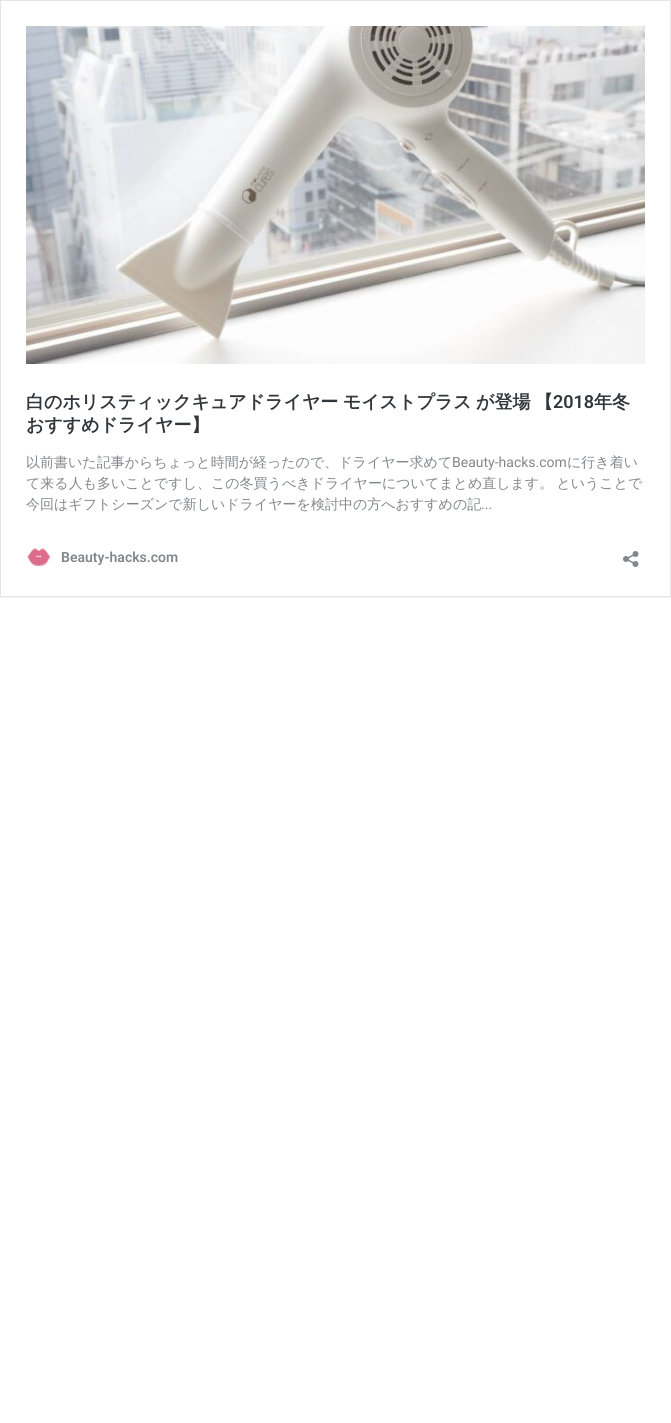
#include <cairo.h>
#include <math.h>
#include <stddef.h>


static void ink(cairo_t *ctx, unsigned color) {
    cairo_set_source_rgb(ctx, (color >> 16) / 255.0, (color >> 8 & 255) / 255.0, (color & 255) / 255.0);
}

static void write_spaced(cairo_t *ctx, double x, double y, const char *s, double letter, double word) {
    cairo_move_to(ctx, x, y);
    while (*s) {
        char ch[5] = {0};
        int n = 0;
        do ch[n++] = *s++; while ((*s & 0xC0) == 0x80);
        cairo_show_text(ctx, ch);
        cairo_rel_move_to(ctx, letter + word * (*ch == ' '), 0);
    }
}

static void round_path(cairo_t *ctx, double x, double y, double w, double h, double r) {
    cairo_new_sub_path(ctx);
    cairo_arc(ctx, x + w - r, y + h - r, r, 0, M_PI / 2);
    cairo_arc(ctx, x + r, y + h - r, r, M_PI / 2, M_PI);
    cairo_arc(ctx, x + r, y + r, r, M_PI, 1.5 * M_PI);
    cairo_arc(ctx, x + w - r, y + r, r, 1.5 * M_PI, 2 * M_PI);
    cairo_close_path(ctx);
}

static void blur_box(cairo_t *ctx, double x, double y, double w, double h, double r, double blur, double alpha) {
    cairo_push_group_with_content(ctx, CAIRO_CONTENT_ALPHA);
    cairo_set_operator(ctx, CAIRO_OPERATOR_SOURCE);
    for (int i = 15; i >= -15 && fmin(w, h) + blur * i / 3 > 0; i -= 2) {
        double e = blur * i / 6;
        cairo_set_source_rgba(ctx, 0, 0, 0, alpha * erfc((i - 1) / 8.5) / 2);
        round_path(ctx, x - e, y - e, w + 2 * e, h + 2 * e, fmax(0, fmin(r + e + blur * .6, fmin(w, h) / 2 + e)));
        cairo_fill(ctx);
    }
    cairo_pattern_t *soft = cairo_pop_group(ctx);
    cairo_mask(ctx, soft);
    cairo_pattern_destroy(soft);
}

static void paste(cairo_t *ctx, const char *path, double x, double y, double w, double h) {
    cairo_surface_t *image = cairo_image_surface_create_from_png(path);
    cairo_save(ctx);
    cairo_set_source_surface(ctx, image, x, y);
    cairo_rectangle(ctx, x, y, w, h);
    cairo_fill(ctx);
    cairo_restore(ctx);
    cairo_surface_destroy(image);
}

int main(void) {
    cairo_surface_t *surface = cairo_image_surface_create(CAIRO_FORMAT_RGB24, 671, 1423);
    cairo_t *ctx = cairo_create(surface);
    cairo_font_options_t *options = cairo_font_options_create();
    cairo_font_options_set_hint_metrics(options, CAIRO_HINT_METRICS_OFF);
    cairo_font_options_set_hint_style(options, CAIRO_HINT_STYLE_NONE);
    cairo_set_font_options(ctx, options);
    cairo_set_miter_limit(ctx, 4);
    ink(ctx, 0xFFFFFF);
    cairo_paint(ctx);
    cairo_save(ctx);
    cairo_rectangle(ctx, 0, 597, 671, 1);
    cairo_clip(ctx);
    ink(ctx, 0x000000);
    blur_box(ctx, 0, 1, 671, 597, 0, 0.5, 0.05);
    cairo_restore(ctx);
    cairo_rectangle(ctx, 0.5, 0.5, 670, 596);
    ink(ctx, 0xE5E5E5);
    cairo_set_line_width(ctx, 1);
    cairo_stroke(ctx);
    paste(ctx, "media/1.png", 26, 26, 619, 338);
    cairo_select_font_face(ctx, "WenQuanYi Zen Hei", CAIRO_FONT_SLANT_NORMAL, CAIRO_FONT_WEIGHT_BOLD);
    cairo_set_font_size(ctx, 18);
    ink(ctx, 0x32373C);
    write_spaced(ctx, 26, 408, "白のホリスティックキュアドライヤー モイストプラス が登場 【", 0, -1);
    cairo_select_font_face(ctx, "Roboto SemiBold", CAIRO_FONT_SLANT_NORMAL, CAIRO_FONT_WEIGHT_NORMAL);
    cairo_move_to(ctx, 553, 408);
    cairo_show_text(ctx, "2018");
    cairo_select_font_face(ctx, "WenQuanYi Zen Hei", CAIRO_FONT_SLANT_NORMAL, CAIRO_FONT_WEIGHT_BOLD);
    cairo_move_to(ctx, 594, 408);
    cairo_show_text(ctx, "年冬");
    cairo_move_to(ctx, 26, 431);
    cairo_show_text(ctx, "おすすめドライヤー】");
    cairo_select_font_face(ctx, "WenQuanYi Zen Hei Medium", CAIRO_FONT_SLANT_NORMAL, CAIRO_FONT_WEIGHT_NORMAL);
    cairo_set_font_size(ctx, 14);
    ink(ctx, 0x82878C);
    cairo_move_to(ctx, 26, 467);
    cairo_show_text(ctx, "以前書いた記事からちょっと時間が経ったので、ドライヤー求めて");
    cairo_select_font_face(ctx, "Roboto", CAIRO_FONT_SLANT_NORMAL, CAIRO_FONT_WEIGHT_NORMAL);
    cairo_move_to(ctx, 452, 467);
    cairo_show_text(ctx, "Beauty-hacks.com");
    cairo_select_font_face(ctx, "WenQuanYi Zen Hei Medium", CAIRO_FONT_SLANT_NORMAL, CAIRO_FONT_WEIGHT_NORMAL);
    cairo_move_to(ctx, 567, 467);
    cairo_show_text(ctx, "に行き着い");
    write_spaced(ctx, 26, 488, "て来る人も多いことですし、この冬買うべきドライヤーについてまとめ直します。 ということで", 0, -1);
    cairo_move_to(ctx, 26, 509);
    cairo_show_text(ctx, "今回はギフトシーズンで新しいドライヤーを検討中の方へおすすめの記");
    cairo_select_font_face(ctx, "Roboto", CAIRO_FONT_SLANT_NORMAL, CAIRO_FONT_WEIGHT_NORMAL);
    cairo_move_to(ctx, 481, 509);
    cairo_show_text(ctx, "...");
    paste(ctx, "media/2.png", 27, 548, 24, 18);
    cairo_select_font_face(ctx, "Roboto SemiBold", CAIRO_FONT_SLANT_NORMAL, CAIRO_FONT_WEIGHT_NORMAL);
    cairo_move_to(ctx, 61, 562);
    cairo_show_text(ctx, "Beauty-hacks.com");
    paste(ctx, "media/3.png", 623, 551, 16, 16);
    cairo_surface_write_to_png(surface, "image.png");
    cairo_font_options_destroy(options);
    cairo_destroy(ctx);
    cairo_surface_destroy(surface);
    return 0;
}
